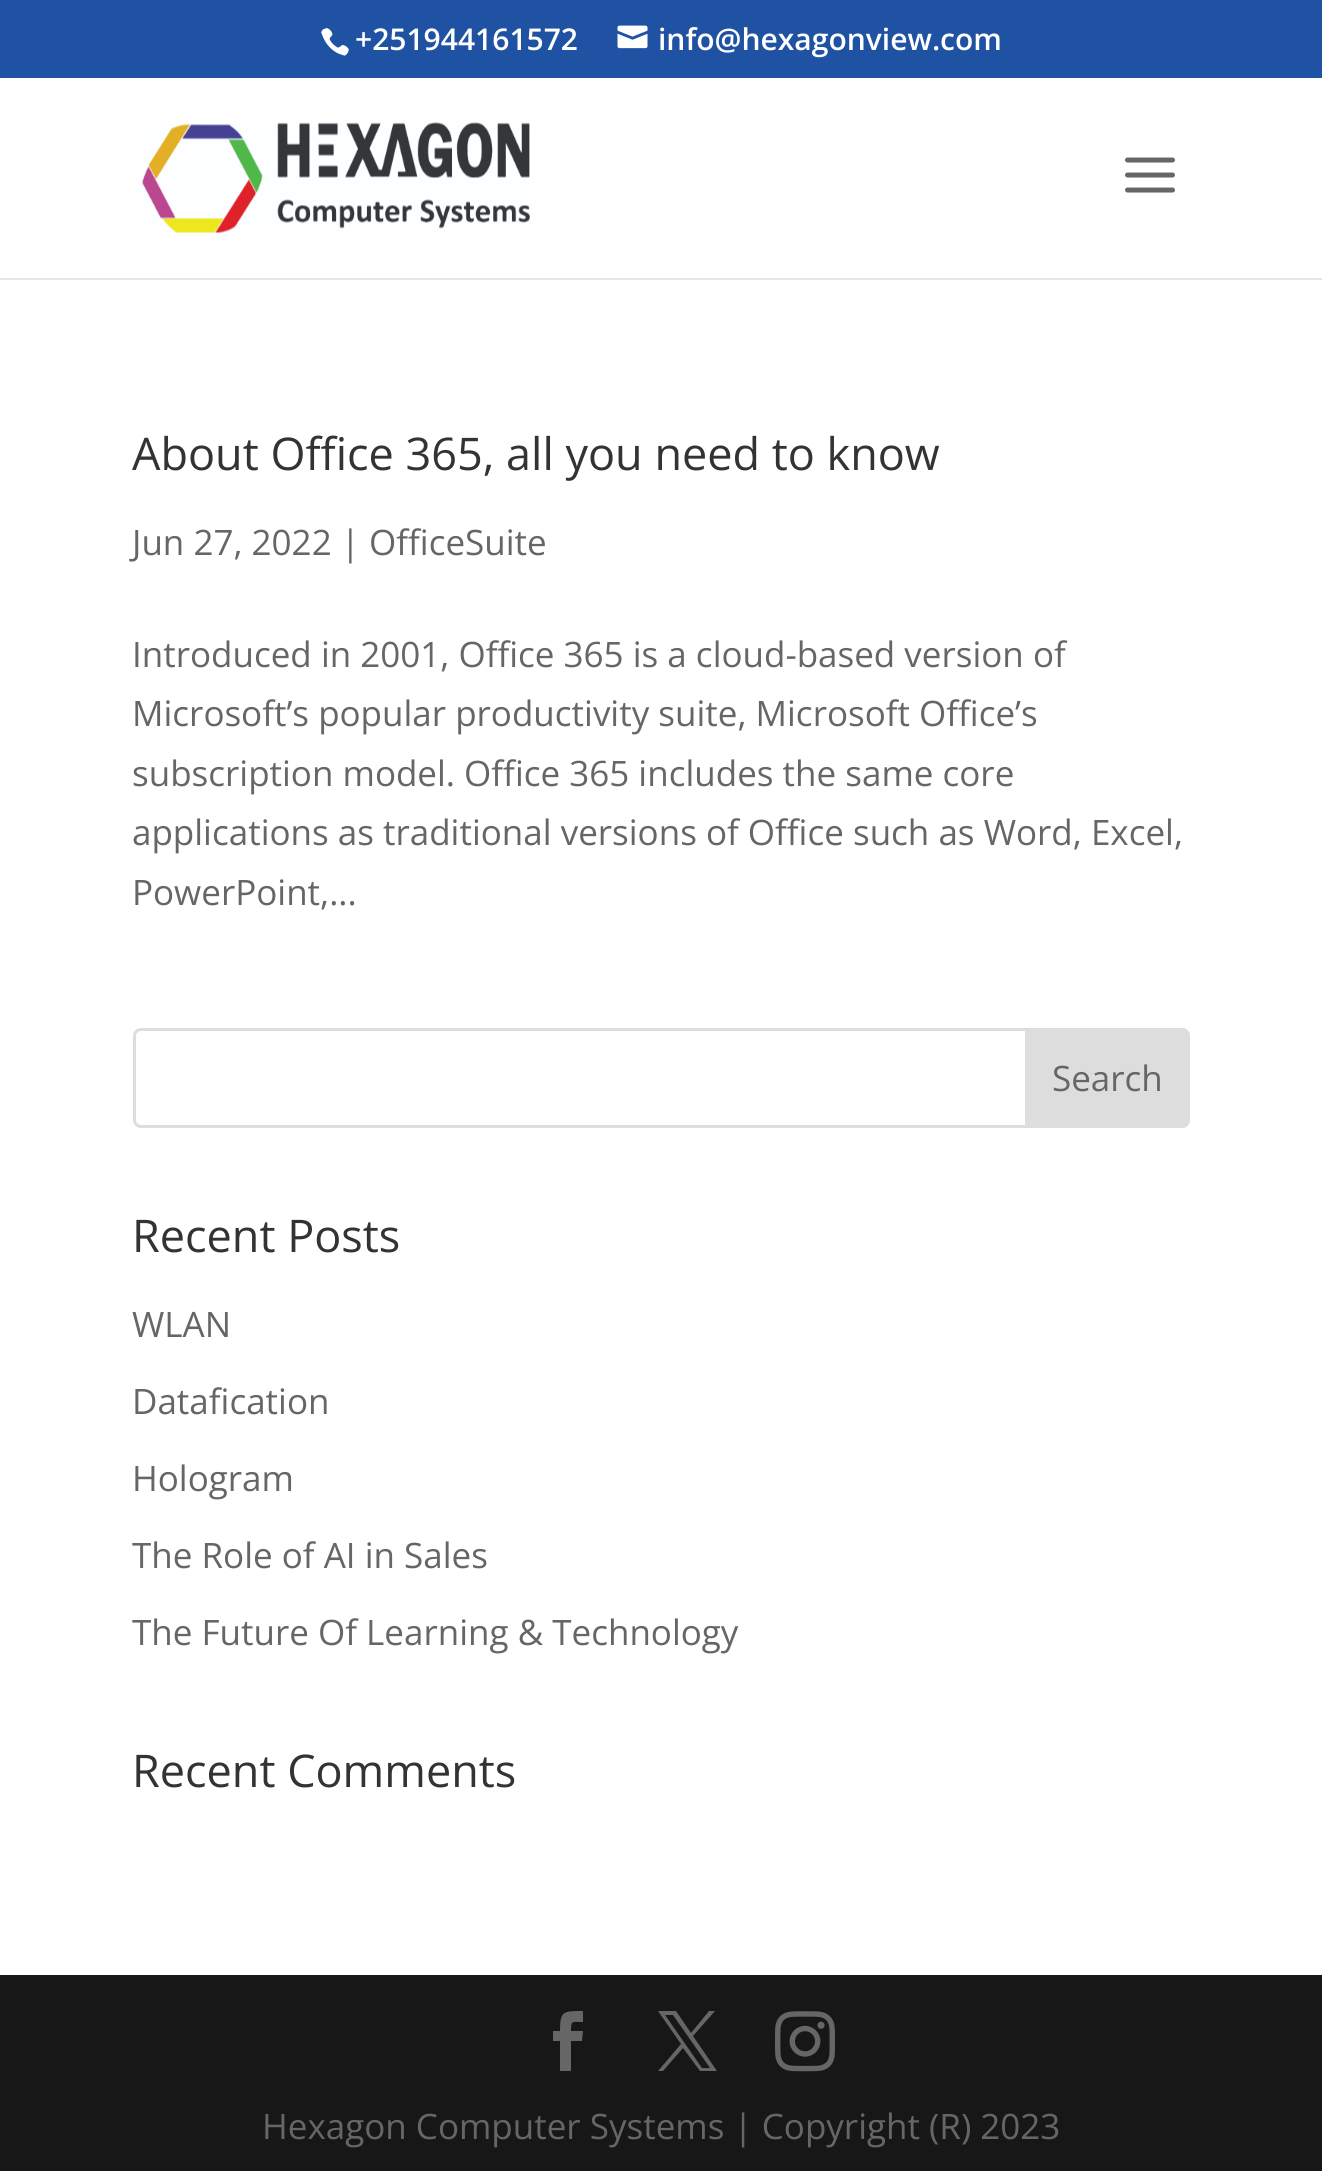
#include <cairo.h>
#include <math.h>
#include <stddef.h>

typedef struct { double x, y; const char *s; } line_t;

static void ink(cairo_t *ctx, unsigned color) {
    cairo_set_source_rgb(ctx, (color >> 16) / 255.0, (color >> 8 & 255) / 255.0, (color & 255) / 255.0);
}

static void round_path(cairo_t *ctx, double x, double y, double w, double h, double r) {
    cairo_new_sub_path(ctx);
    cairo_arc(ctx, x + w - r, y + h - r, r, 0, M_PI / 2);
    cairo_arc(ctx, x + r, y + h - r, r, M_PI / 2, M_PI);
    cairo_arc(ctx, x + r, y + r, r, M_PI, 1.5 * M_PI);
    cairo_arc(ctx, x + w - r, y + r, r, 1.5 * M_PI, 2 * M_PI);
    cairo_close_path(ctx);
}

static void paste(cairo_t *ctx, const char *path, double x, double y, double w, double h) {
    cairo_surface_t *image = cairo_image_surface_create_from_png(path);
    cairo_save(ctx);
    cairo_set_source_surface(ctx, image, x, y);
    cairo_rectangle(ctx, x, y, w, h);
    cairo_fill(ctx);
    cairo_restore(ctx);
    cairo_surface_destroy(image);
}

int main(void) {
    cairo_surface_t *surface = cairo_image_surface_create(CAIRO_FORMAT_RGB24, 1322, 2171);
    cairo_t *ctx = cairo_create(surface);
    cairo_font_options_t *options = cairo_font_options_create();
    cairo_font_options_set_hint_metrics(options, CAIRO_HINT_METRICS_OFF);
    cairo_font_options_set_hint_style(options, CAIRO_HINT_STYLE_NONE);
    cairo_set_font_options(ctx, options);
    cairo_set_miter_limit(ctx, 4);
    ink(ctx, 0xFFFFFF);
    cairo_paint(ctx);
    ink(ctx, 0x1F52A2);
    cairo_rectangle(ctx, 0, 0, 1322, 78);
    cairo_fill(ctx);
    paste(ctx, "media/1.png", 321, 28, 28, 28);
    cairo_select_font_face(ctx, "Open Sans SemiBold", CAIRO_FONT_SLANT_NORMAL, CAIRO_FONT_WEIGHT_NORMAL);
    cairo_set_font_size(ctx, 30);
    ink(ctx, 0xFFFFFF);
    cairo_move_to(ctx, 355, 50);
    cairo_show_text(ctx, "+251944161572");
    paste(ctx, "media/2.png", 617, 25, 31, 24);
    cairo_move_to(ctx, 658, 50);
    cairo_show_text(ctx, "info@hexagonview.com");
    ink(ctx, 0xE6E6E6);
    cairo_new_path(ctx);
    cairo_move_to(ctx, 0, 278);
    cairo_line_to(ctx, 0, 280);
    cairo_line_to(ctx, 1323, 280);
    cairo_line_to(ctx, 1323, 80);
    cairo_line_to(ctx, 1322, 80);
    cairo_line_to(ctx, 1322, 278);
    cairo_close_path(ctx);
    cairo_fill(ctx);
    paste(ctx, "media/3.png", 142, 122, 388, 111);
    paste(ctx, "media/4.png", 1125, 157, 50, 36);
    cairo_select_font_face(ctx, "Open Sans", CAIRO_FONT_SLANT_NORMAL, CAIRO_FONT_WEIGHT_NORMAL);
    cairo_set_font_size(ctx, 45);
    ink(ctx, 0x333333);
    cairo_move_to(ctx, 132, 470);
    cairo_show_text(ctx, "About Office 365, all you need to know");
    cairo_set_font_size(ctx, 35);
    ink(ctx, 0x666666);
    {
        static const line_t items[] = {
            {132, 555, "Jun 27, 2022 | OfficeSuite"},
            {132, 667, "Introduced in 2001, Office 365 is a cloud-based version of"},
            {132, 726, "Microsoft’s popular productivity suite, Microsoft Office’s"},
            {132, 786, "subscription model. Office 365 includes the same core"},
            {132, 845, "applications as traditional versions of Office such as Word, Excel,"},
            {132, 905, "PowerPoint,..."},
        };
        for (size_t i = 0; i < sizeof items / sizeof *items; i++) {
            cairo_move_to(ctx, items[i].x, items[i].y);
            cairo_show_text(ctx, items[i].s);
        }
    }
    round_path(ctx, 134.5, 1029.5, 1054, 97, 6.5);
    ink(ctx, 0xDDDDDD);
    cairo_set_line_width(ctx, 3);
    cairo_stroke(ctx);
    cairo_new_path(ctx);
    cairo_move_to(ctx, 1026.5, 1029.5);
    cairo_line_to(ctx, 1182, 1029.5);
    cairo_curve_to(ctx, 1185.5, 1029.5, 1188.5, 1032.5, 1188.5, 1036);
    cairo_line_to(ctx, 1188.5, 1120);
    cairo_curve_to(ctx, 1188.5, 1123.5, 1185.5, 1126.5, 1182, 1126.5);
    cairo_line_to(ctx, 1026.5, 1126.5);
    cairo_close_path(ctx);
    cairo_fill_preserve(ctx);
    cairo_stroke(ctx);
    ink(ctx, 0x666666);
    cairo_move_to(ctx, 1052, 1091);
    cairo_show_text(ctx, "Search");
    cairo_set_font_size(ctx, 45);
    ink(ctx, 0x333333);
    cairo_move_to(ctx, 132, 1252);
    cairo_show_text(ctx, "Recent Posts");
    cairo_set_font_size(ctx, 35);
    ink(ctx, 0x666666);
    {
        static const line_t items[] = {
            {132, 1337, "WLAN"},
            {132, 1414, "Datafication"},
            {132, 1491, "Hologram"},
            {132, 1568, "The Role of AI in Sales"},
            {132, 1645, "The Future Of Learning & Technology"},
        };
        for (size_t i = 0; i < sizeof items / sizeof *items; i++) {
            cairo_move_to(ctx, items[i].x, items[i].y);
            cairo_show_text(ctx, items[i].s);
        }
    }
    cairo_set_font_size(ctx, 45);
    ink(ctx, 0x333333);
    cairo_move_to(ctx, 132, 1787);
    cairo_show_text(ctx, "Recent Comments");
    ink(ctx, 0x171717);
    cairo_rectangle(ctx, 0, 1975, 1322, 196);
    cairo_fill(ctx);
    ink(ctx, 0x666666);
    cairo_new_path(ctx);
    cairo_move_to(ctx, 560, 2071);
    cairo_line_to(ctx, 571, 2071);
    cairo_line_to(ctx, 571, 2041);
    cairo_line_to(ctx, 582, 2041);
    cairo_line_to(ctx, 583, 2031);
    cairo_line_to(ctx, 571, 2031);
    cairo_curve_to(ctx, 571, 2020, 572, 2022, 583, 2022);
    cairo_line_to(ctx, 583, 2011);
    cairo_curve_to(ctx, 563, 2011, 560, 2011, 560, 2031);
    cairo_line_to(ctx, 553, 2031);
    cairo_line_to(ctx, 553, 2041);
    cairo_line_to(ctx, 560, 2041);
    cairo_close_path(ctx);
    cairo_fill(ctx);
    cairo_new_path(ctx);
    cairo_move_to(ctx, 658, 2011);
    cairo_line_to(ctx, 681, 2044);
    cairo_line_to(ctx, 658, 2071);
    cairo_line_to(ctx, 663, 2071);
    cairo_line_to(ctx, 683, 2048);
    cairo_line_to(ctx, 700, 2071);
    cairo_line_to(ctx, 717, 2071);
    cairo_line_to(ctx, 693, 2036);
    cairo_line_to(ctx, 715, 2011);
    cairo_line_to(ctx, 709, 2011);
    cairo_line_to(ctx, 691, 2033);
    cairo_line_to(ctx, 676, 2011);
    cairo_close_path(ctx);
    cairo_move_to(ctx, 665, 2015);
    cairo_line_to(ctx, 673, 2015);
    cairo_line_to(ctx, 710, 2068);
    cairo_line_to(ctx, 702, 2068);
    cairo_close_path(ctx);
    cairo_fill(ctx);
    paste(ctx, "media/5.png", 775, 2011, 60, 61);
    cairo_set_font_size(ctx, 35);
    cairo_move_to(ctx, 262, 2139);
    cairo_show_text(ctx, "Hexagon Computer Systems | Copyright (R) 2023");
    cairo_surface_write_to_png(surface, "image.png");
    cairo_font_options_destroy(options);
    cairo_destroy(ctx);
    cairo_surface_destroy(surface);
    return 0;
}
